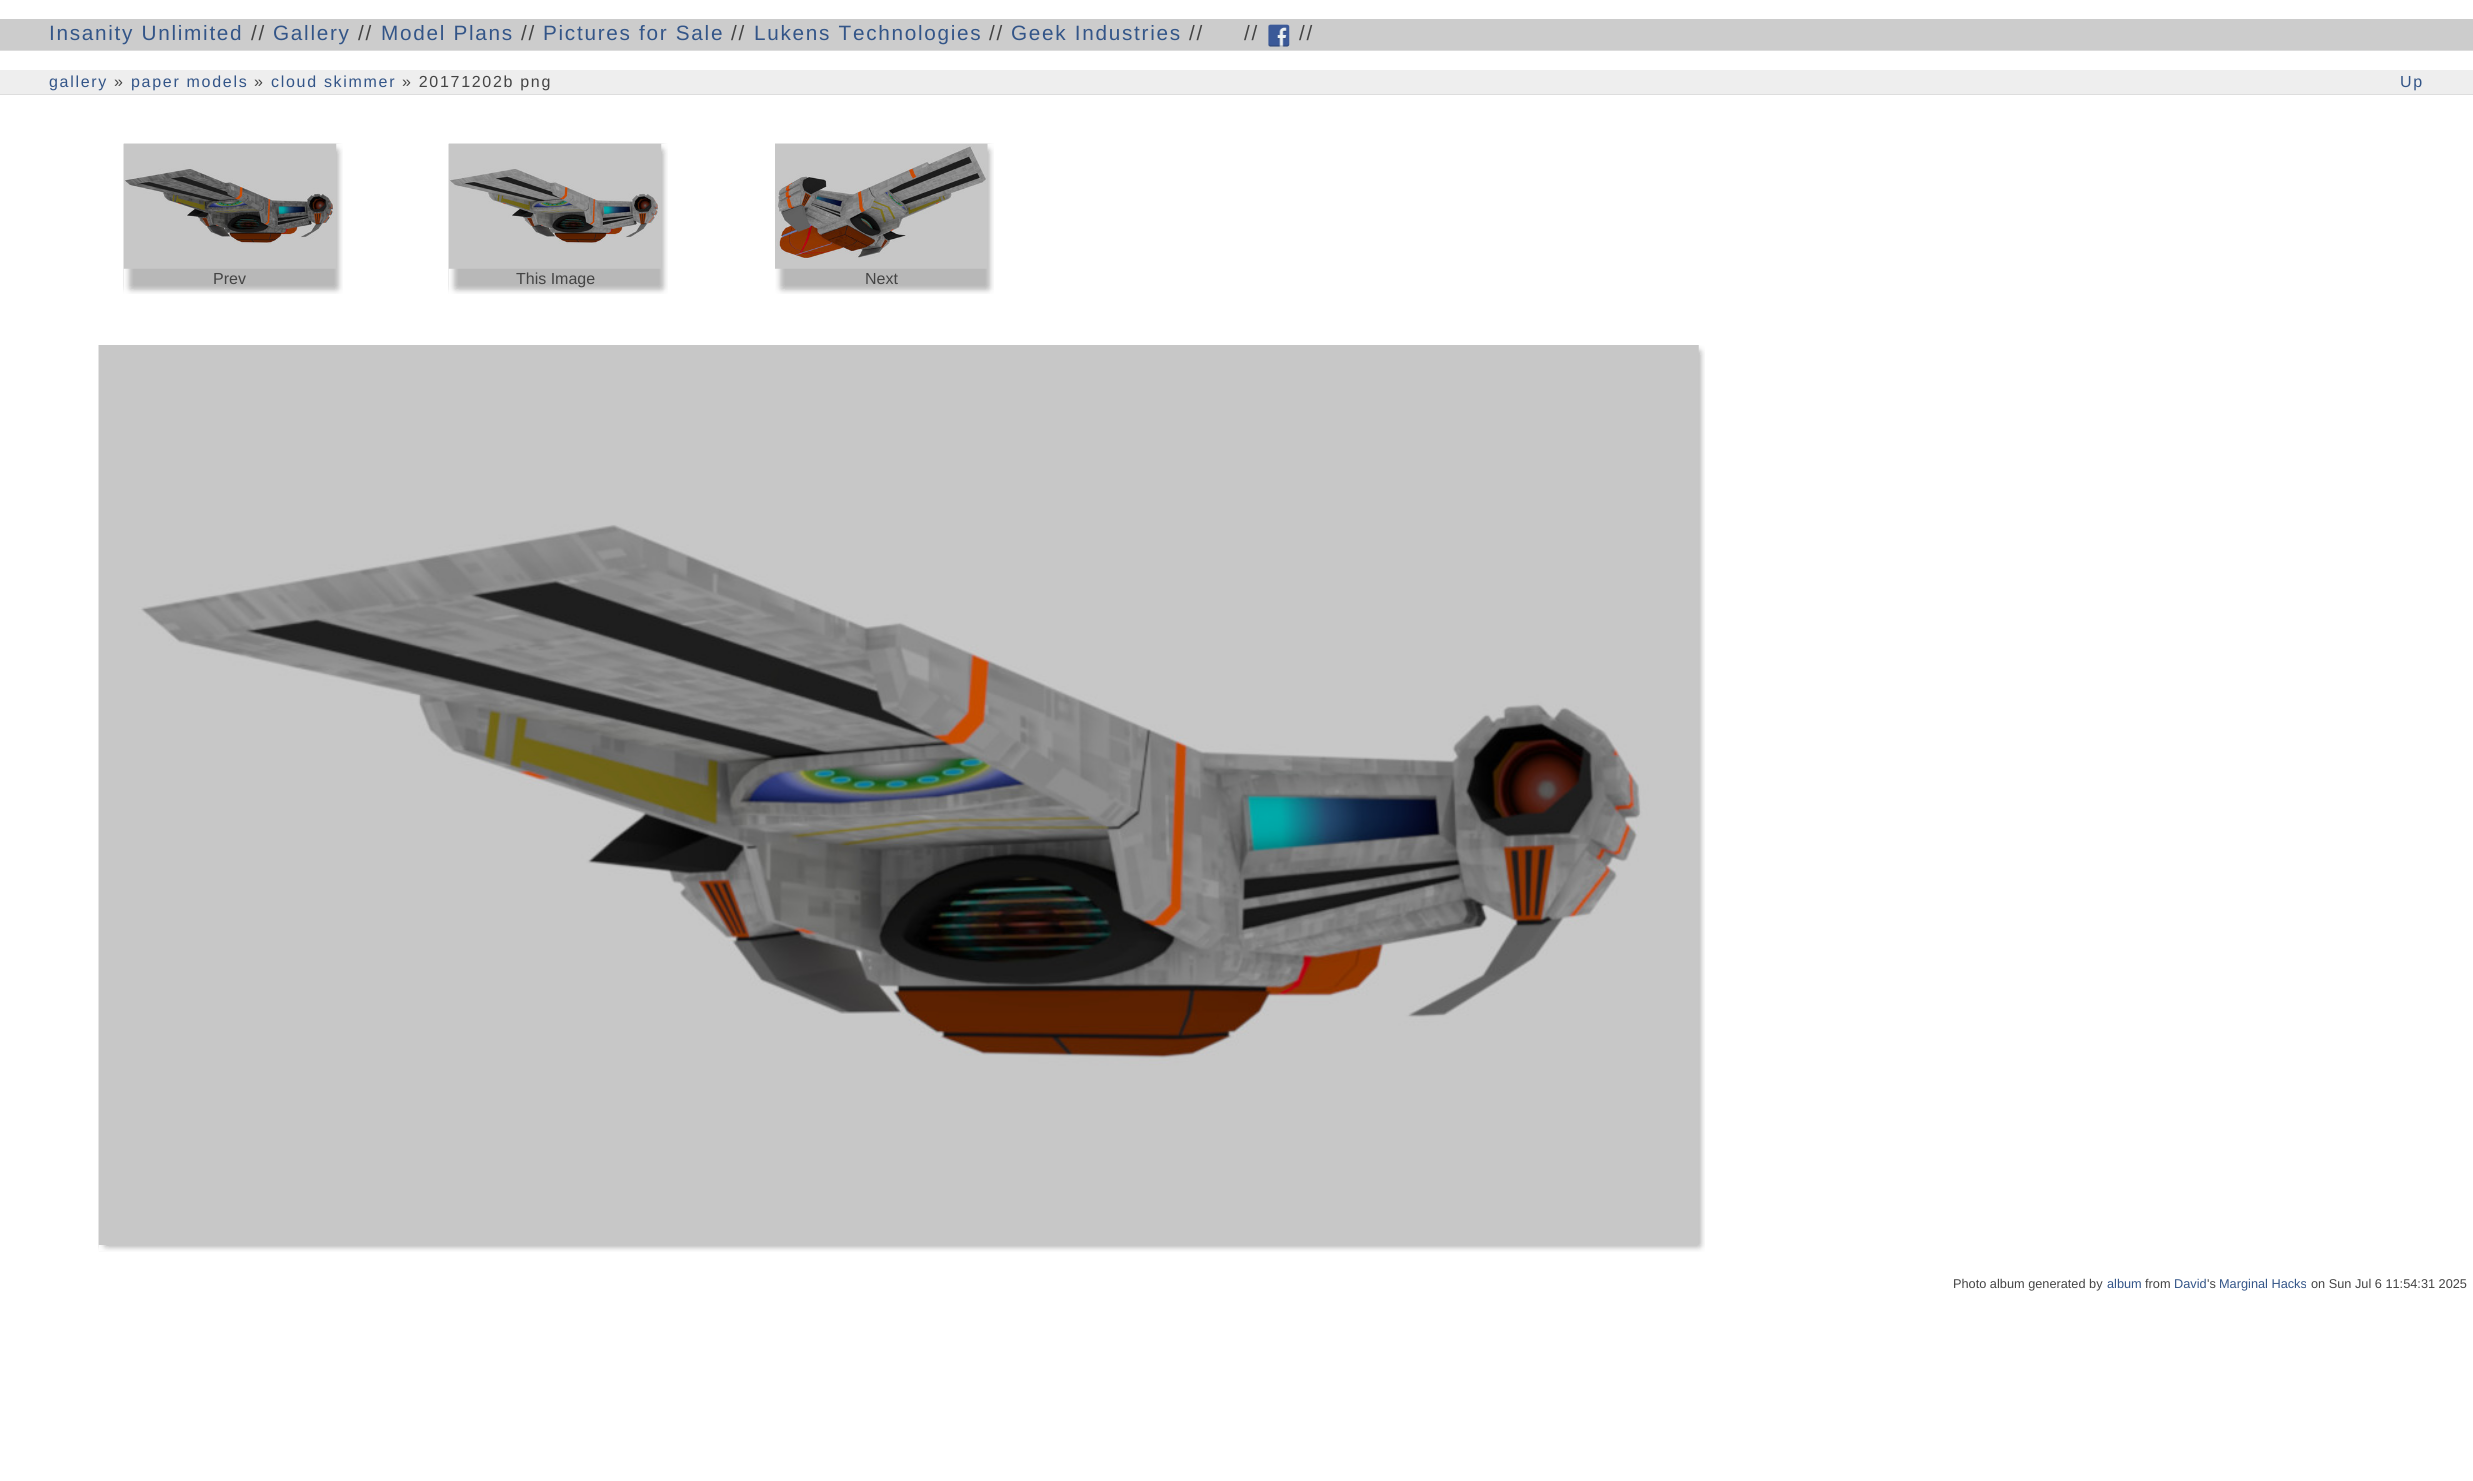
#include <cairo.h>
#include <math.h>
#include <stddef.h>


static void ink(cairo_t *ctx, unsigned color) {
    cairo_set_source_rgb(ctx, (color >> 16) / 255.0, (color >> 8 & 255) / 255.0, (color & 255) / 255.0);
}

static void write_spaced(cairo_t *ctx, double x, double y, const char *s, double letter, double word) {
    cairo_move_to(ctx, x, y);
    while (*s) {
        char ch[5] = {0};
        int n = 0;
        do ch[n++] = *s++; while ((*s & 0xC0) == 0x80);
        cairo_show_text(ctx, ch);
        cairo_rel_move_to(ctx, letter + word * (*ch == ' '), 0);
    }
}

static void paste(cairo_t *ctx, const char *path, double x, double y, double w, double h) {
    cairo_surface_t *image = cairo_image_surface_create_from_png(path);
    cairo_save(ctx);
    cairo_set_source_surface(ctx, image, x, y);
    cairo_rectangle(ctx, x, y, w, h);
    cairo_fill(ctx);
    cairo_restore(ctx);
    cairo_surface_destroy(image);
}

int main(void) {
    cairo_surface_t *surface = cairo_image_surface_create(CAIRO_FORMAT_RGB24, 2473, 1481);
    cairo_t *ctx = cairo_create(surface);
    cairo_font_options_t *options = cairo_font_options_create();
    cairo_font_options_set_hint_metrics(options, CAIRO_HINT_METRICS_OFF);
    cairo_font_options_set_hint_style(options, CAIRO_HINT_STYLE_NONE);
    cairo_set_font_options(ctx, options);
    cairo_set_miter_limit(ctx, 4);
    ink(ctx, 0xFFFFFF);
    cairo_paint(ctx);
    ink(ctx, 0xCCCCCC);
    cairo_rectangle(ctx, 0, 19, 2473, 31);
    cairo_fill(ctx);
    ink(ctx, 0xDDDDDD);
    cairo_rectangle(ctx, 0, 50, 2473, 1);
    cairo_fill(ctx);
    cairo_select_font_face(ctx, "Liberation Sans", CAIRO_FONT_SLANT_NORMAL, CAIRO_FONT_WEIGHT_NORMAL);
    cairo_set_font_size(ctx, 20.75);
    ink(ctx, 0x335588);
    write_spaced(ctx, 49, 40, "Insanity Unlimited", 1.7, 0);
    ink(ctx, 0x444444);
    write_spaced(ctx, 251, 40, "//", 1.7, 0);
    ink(ctx, 0x335588);
    write_spaced(ctx, 273, 40, "Gallery", 1.7, 0);
    ink(ctx, 0x444444);
    write_spaced(ctx, 358, 40, "//", 1.7, 0);
    ink(ctx, 0x335588);
    write_spaced(ctx, 381, 40, "Model Plans", 1.7, 0);
    ink(ctx, 0x444444);
    write_spaced(ctx, 521, 40, "//", 1.7, 0);
    ink(ctx, 0x335588);
    write_spaced(ctx, 543, 40, "Pictures for Sale", 1.7, 0);
    ink(ctx, 0x444444);
    write_spaced(ctx, 731, 40, "//", 1.7, 0);
    ink(ctx, 0x335588);
    write_spaced(ctx, 754, 40, "Lukens Technologies", 1.7, 0);
    ink(ctx, 0x444444);
    write_spaced(ctx, 989, 40, "//", 1.7, 0);
    ink(ctx, 0x335588);
    write_spaced(ctx, 1011, 40, "Geek Industries", 1.7, 0);
    ink(ctx, 0x444444);
    write_spaced(ctx, 1189, 40, "//", 1.7, 0);
    write_spaced(ctx, 1244, 40, "//", 1.7, 0);
    paste(ctx, "media/1.png", 1268, 24, 22, 23);
    write_spaced(ctx, 1299, 40, "//", 1.7, 0);
    ink(ctx, 0xEEEEEE);
    cairo_rectangle(ctx, 0, 70, 2473, 24);
    cairo_fill(ctx);
    ink(ctx, 0xDDDDDD);
    cairo_rectangle(ctx, 0, 94, 2473, 1);
    cairo_fill(ctx);
    cairo_set_font_size(ctx, 16);
    ink(ctx, 0x335588);
    write_spaced(ctx, 49, 87, "gallery", 1.7, 0);
    ink(ctx, 0x444444);
    write_spaced(ctx, 114, 87, "»", 1.7, 0);
    ink(ctx, 0x335588);
    write_spaced(ctx, 131, 87, "paper models", 1.7, 0);
    ink(ctx, 0x444444);
    write_spaced(ctx, 254, 87, "»", 1.7, 0);
    ink(ctx, 0x335588);
    write_spaced(ctx, 271, 87, "cloud skimmer", 1.7, 0);
    ink(ctx, 0x444444);
    write_spaced(ctx, 402, 87, "» 20171202b png", 1.7, 0);
    ink(ctx, 0x335588);
    write_spaced(ctx, 2400, 87, "Up", 1.7, 0);
    paste(ctx, "media/2.png", 123, 143, 220, 151);
    paste(ctx, "media/3.png", 124, 268, 10, 26);
    paste(ctx, "media/4.png", 336, 144, 7, 10);
    paste(ctx, "media/5.png", 123, 143, 214, 126);
    ink(ctx, 0x444444);
    cairo_move_to(ctx, 213, 284);
    cairo_show_text(ctx, "Prev");
    paste(ctx, "media/6.png", 448, 143, 220, 151);
    paste(ctx, "media/7.png", 449, 268, 10, 26);
    paste(ctx, "media/4.png", 661, 144, 7, 10);
    paste(ctx, "media/8.png", 448, 143, 214, 126);
    cairo_move_to(ctx, 516, 284);
    cairo_show_text(ctx, "This Image");
    paste(ctx, "media/9.png", 775, 143, 219, 151);
    paste(ctx, "media/10.png", 775, 268, 10, 26);
    paste(ctx, "media/11.png", 987, 144, 7, 10);
    paste(ctx, "media/12.png", 775, 143, 213, 126);
    cairo_move_to(ctx, 865, 284);
    cairo_show_text(ctx, "Next");
    paste(ctx, "media/13.png", 98, 345, 1607, 907);
    paste(ctx, "media/14.png", 99, 1245, 10, 6);
    paste(ctx, "media/15.png", 1698, 345, 7, 10);
    paste(ctx, "media/16.png", 98, 345, 1601, 900);
    cairo_set_font_size(ctx, 12.75);
    cairo_move_to(ctx, 1953, 1288);
    cairo_show_text(ctx, "Photo album generated by");
    ink(ctx, 0x335588);
    cairo_move_to(ctx, 2107, 1288);
    cairo_show_text(ctx, "album");
    ink(ctx, 0x444444);
    cairo_move_to(ctx, 2145, 1288);
    cairo_show_text(ctx, "from");
    ink(ctx, 0x335588);
    cairo_move_to(ctx, 2174, 1288);
    cairo_show_text(ctx, "David");
    ink(ctx, 0x444444);
    cairo_move_to(ctx, 2207, 1288);
    cairo_show_text(ctx, "'s");
    ink(ctx, 0x335588);
    cairo_move_to(ctx, 2219, 1288);
    cairo_show_text(ctx, "Marginal Hacks");
    ink(ctx, 0x444444);
    cairo_move_to(ctx, 2311, 1288);
    cairo_show_text(ctx, "on Sun Jul 6 11:54:31 2025");
    cairo_surface_write_to_png(surface, "image.png");
    cairo_font_options_destroy(options);
    cairo_destroy(ctx);
    cairo_surface_destroy(surface);
    return 0;
}
